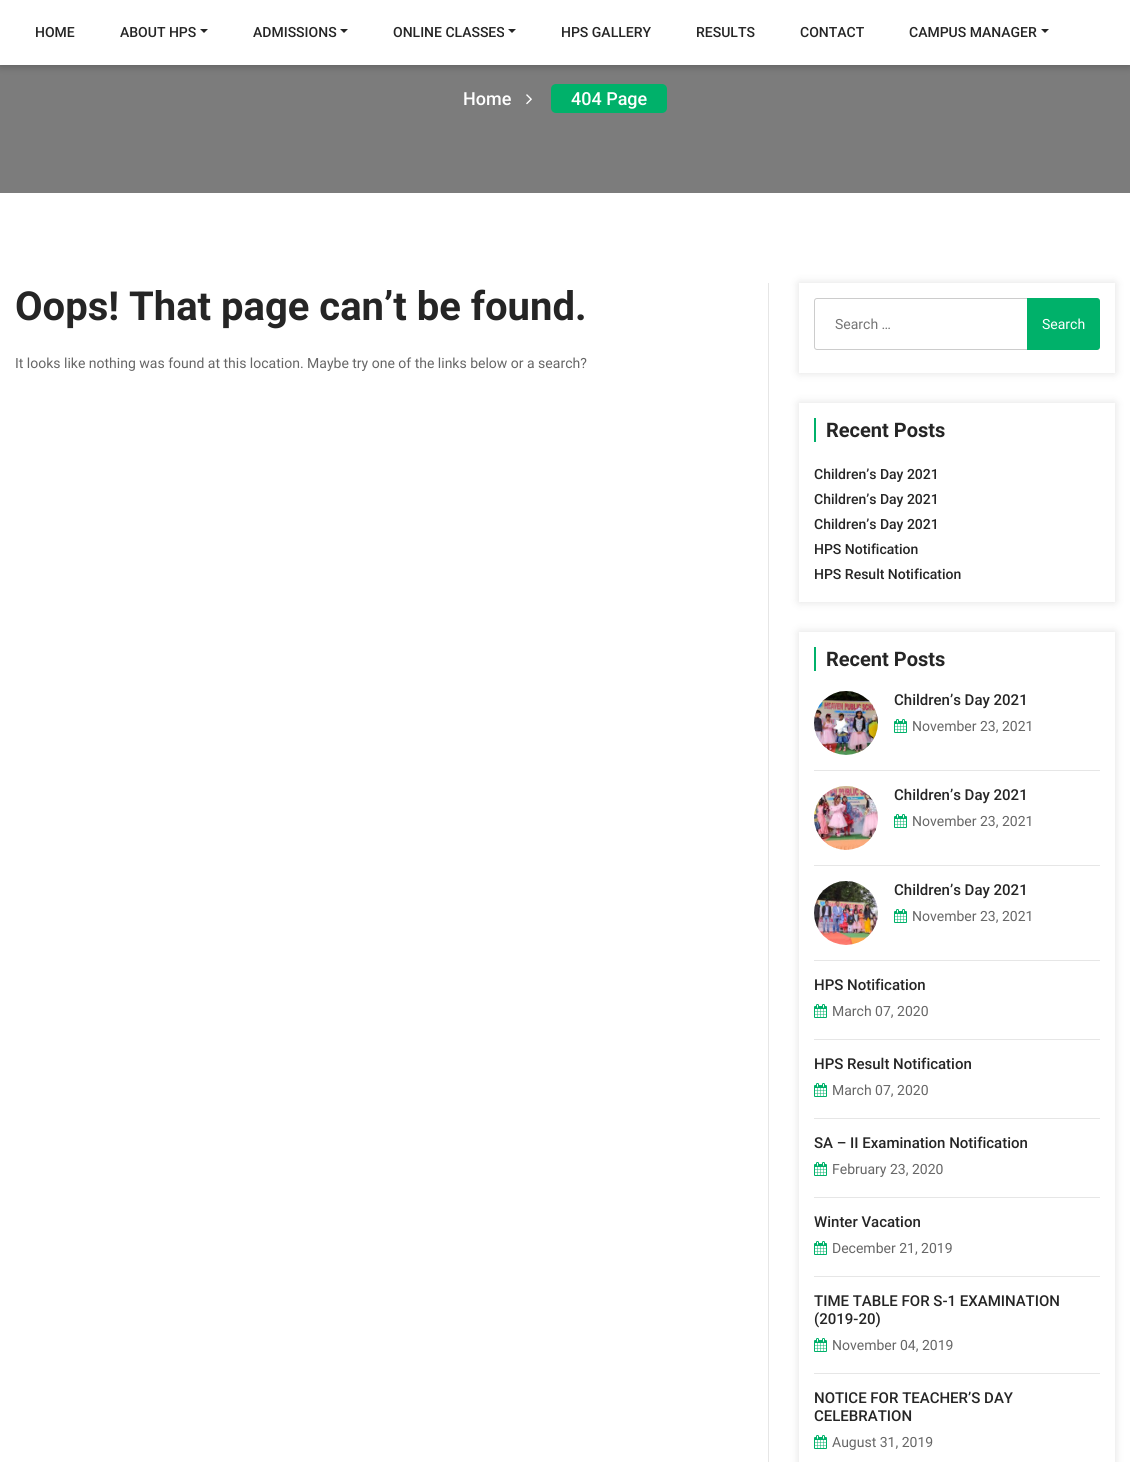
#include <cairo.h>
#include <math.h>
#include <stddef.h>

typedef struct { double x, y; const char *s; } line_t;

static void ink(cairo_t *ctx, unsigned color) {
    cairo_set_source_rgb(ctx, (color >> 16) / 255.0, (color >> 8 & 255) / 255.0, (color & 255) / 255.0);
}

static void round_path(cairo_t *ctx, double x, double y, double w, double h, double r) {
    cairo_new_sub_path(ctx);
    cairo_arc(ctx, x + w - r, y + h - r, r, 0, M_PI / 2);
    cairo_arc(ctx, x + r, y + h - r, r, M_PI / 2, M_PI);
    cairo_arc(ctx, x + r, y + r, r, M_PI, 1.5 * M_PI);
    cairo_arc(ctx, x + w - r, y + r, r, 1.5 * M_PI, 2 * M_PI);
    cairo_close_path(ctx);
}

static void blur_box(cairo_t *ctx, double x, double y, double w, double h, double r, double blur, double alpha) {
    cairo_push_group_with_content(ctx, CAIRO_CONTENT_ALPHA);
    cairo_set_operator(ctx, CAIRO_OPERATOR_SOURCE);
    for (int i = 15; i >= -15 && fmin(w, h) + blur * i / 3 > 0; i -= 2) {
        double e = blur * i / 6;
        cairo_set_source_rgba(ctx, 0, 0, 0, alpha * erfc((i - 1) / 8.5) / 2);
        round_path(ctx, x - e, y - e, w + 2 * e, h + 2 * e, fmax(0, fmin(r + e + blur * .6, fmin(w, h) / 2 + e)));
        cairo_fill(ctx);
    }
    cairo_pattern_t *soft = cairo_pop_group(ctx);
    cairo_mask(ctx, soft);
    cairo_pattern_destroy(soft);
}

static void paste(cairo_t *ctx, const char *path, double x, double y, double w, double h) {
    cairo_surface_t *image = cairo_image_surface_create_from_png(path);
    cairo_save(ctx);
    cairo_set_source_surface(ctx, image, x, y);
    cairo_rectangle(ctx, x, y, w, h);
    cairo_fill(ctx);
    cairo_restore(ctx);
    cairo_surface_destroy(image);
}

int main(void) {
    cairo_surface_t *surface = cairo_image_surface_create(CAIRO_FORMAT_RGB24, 1130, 1462);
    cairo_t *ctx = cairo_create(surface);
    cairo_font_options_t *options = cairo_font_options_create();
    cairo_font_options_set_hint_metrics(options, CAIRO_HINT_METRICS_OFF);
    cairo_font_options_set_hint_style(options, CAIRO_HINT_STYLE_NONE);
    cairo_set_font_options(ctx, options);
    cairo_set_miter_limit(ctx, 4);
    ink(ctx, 0xFFFFFF);
    cairo_paint(ctx);
    ink(ctx, 0x7C7C7C);
    cairo_rectangle(ctx, 0, 65, 1130, 128);
    cairo_fill(ctx);
    ink(ctx, 0x000000);
    blur_box(ctx, 0, 0, 1130, 65, 0, 5, 0.3);
    ink(ctx, 0xFFFFFF);
    cairo_rectangle(ctx, 0, 0, 1130, 65);
    cairo_fill(ctx);
    cairo_select_font_face(ctx, "Roboto Medium", CAIRO_FONT_SLANT_NORMAL, CAIRO_FONT_WEIGHT_NORMAL);
    cairo_set_font_size(ctx, 14);
    ink(ctx, 0x252525);
    cairo_move_to(ctx, 35, 37);
    cairo_show_text(ctx, "HOME");
    cairo_move_to(ctx, 120, 37);
    cairo_show_text(ctx, "ABOUT HPS");
    cairo_new_path(ctx);
    cairo_move_to(ctx, 200, 29);
    cairo_line_to(ctx, 208, 29);
    cairo_line_to(ctx, 204, 33);
    cairo_close_path(ctx);
    cairo_fill(ctx);
    cairo_move_to(ctx, 253, 37);
    cairo_show_text(ctx, "ADMISSIONS");
    cairo_new_path(ctx);
    cairo_move_to(ctx, 340, 29);
    cairo_line_to(ctx, 348, 29);
    cairo_line_to(ctx, 344, 33);
    cairo_close_path(ctx);
    cairo_fill(ctx);
    cairo_move_to(ctx, 393, 37);
    cairo_show_text(ctx, "ONLINE CLASSES");
    cairo_new_path(ctx);
    cairo_move_to(ctx, 508, 29);
    cairo_line_to(ctx, 516, 29);
    cairo_line_to(ctx, 512, 33);
    cairo_close_path(ctx);
    cairo_fill(ctx);
    {
        static const line_t items[] = {
            {561, 37, "HPS GALLERY"},
            {696, 37, "RESULTS"},
            {800, 37, "CONTACT"},
            {909, 37, "CAMPUS MANAGER"},
        };
        for (size_t i = 0; i < sizeof items / sizeof *items; i++) {
            cairo_move_to(ctx, items[i].x, items[i].y);
            cairo_show_text(ctx, items[i].s);
        }
    }
    cairo_new_path(ctx);
    cairo_move_to(ctx, 1041, 29);
    cairo_line_to(ctx, 1049, 29);
    cairo_line_to(ctx, 1045, 33);
    cairo_close_path(ctx);
    cairo_fill(ctx);
    cairo_set_font_size(ctx, 18);
    ink(ctx, 0xFFFFFF);
    cairo_move_to(ctx, 463, 105);
    cairo_show_text(ctx, "Home");
    paste(ctx, "media/1.png", 526, 94, 6, 11);
    ink(ctx, 0x00B16A);
    round_path(ctx, 551, 84, 116, 29, 5);
    cairo_fill(ctx);
    ink(ctx, 0xFFFFFF);
    cairo_move_to(ctx, 571, 105);
    cairo_show_text(ctx, "404 Page");
    cairo_select_font_face(ctx, "Roboto", CAIRO_FONT_SLANT_NORMAL, CAIRO_FONT_WEIGHT_BOLD);
    cairo_set_font_size(ctx, 40);
    ink(ctx, 0x252525);
    cairo_move_to(ctx, 15, 320);
    cairo_show_text(ctx, "Oops! That page can’t be found.");
    cairo_select_font_face(ctx, "Roboto", CAIRO_FONT_SLANT_NORMAL, CAIRO_FONT_WEIGHT_NORMAL);
    cairo_set_font_size(ctx, 14);
    ink(ctx, 0x666666);
    cairo_move_to(ctx, 15, 368);
    cairo_show_text(ctx, "It looks like nothing was found at this location. Maybe try one of the links below or a search?");
    ink(ctx, 0xE6E6E6);
    cairo_rectangle(ctx, 768, 283, 1, 1179);
    cairo_fill(ctx);
    cairo_save(ctx);
    cairo_set_fill_rule(ctx, CAIRO_FILL_RULE_EVEN_ODD);
    cairo_new_path(ctx);
    cairo_move_to(ctx, 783, 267);
    cairo_line_to(ctx, 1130, 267);
    cairo_line_to(ctx, 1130, 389);
    cairo_line_to(ctx, 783, 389);
    cairo_close_path(ctx);
    cairo_move_to(ctx, 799, 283);
    cairo_line_to(ctx, 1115, 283);
    cairo_line_to(ctx, 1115, 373);
    cairo_line_to(ctx, 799, 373);
    cairo_close_path(ctx);
    cairo_clip(ctx);
    ink(ctx, 0x000000);
    blur_box(ctx, 799, 283, 316, 90, 0, 5, 0.12);
    cairo_restore(ctx);
    round_path(ctx, 814.5, 298.5, 285, 51, 2.5);
    ink(ctx, 0xCCCCCC);
    cairo_set_line_width(ctx, 1);
    cairo_stroke(ctx);
    ink(ctx, 0x757575);
    cairo_move_to(ctx, 835, 329);
    cairo_show_text(ctx, "Search …");
    ink(ctx, 0x00B16A);
    cairo_new_path(ctx);
    cairo_move_to(ctx, 1027, 298);
    cairo_line_to(ctx, 1097, 298);
    cairo_curve_to(ctx, 1098.5, 298, 1100, 299.5, 1100, 301);
    cairo_line_to(ctx, 1100, 347);
    cairo_curve_to(ctx, 1100, 348.5, 1098.5, 350, 1097, 350);
    cairo_line_to(ctx, 1027, 350);
    cairo_close_path(ctx);
    cairo_fill(ctx);
    ink(ctx, 0xFFFFFF);
    cairo_move_to(ctx, 1042, 329);
    cairo_show_text(ctx, "Search");
    cairo_save(ctx);
    cairo_set_fill_rule(ctx, CAIRO_FILL_RULE_EVEN_ODD);
    cairo_new_path(ctx);
    cairo_move_to(ctx, 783, 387);
    cairo_line_to(ctx, 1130, 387);
    cairo_line_to(ctx, 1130, 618);
    cairo_line_to(ctx, 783, 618);
    cairo_close_path(ctx);
    cairo_move_to(ctx, 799, 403);
    cairo_line_to(ctx, 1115, 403);
    cairo_line_to(ctx, 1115, 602);
    cairo_line_to(ctx, 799, 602);
    cairo_close_path(ctx);
    cairo_clip(ctx);
    ink(ctx, 0x000000);
    blur_box(ctx, 799, 403, 316, 199, 0, 5, 0.12);
    cairo_restore(ctx);
    ink(ctx, 0x00B16A);
    cairo_rectangle(ctx, 814, 418, 2, 24);
    cairo_fill(ctx);
    cairo_select_font_face(ctx, "Roboto", CAIRO_FONT_SLANT_NORMAL, CAIRO_FONT_WEIGHT_BOLD);
    cairo_set_font_size(ctx, 20);
    ink(ctx, 0x252525);
    cairo_move_to(ctx, 826, 437);
    cairo_show_text(ctx, "Recent Posts");
    cairo_select_font_face(ctx, "Roboto Medium", CAIRO_FONT_SLANT_NORMAL, CAIRO_FONT_WEIGHT_NORMAL);
    cairo_set_font_size(ctx, 14);
    {
        static const line_t items[] = {
            {814, 479, "Children’s Day 2021"},
            {814, 504, "Children’s Day 2021"},
            {814, 529, "Children’s Day 2021"},
            {814, 554, "HPS Notification"},
            {814, 579, "HPS Result Notification"},
        };
        for (size_t i = 0; i < sizeof items / sizeof *items; i++) {
            cairo_move_to(ctx, items[i].x, items[i].y);
            cairo_show_text(ctx, items[i].s);
        }
    }
    cairo_save(ctx);
    cairo_set_fill_rule(ctx, CAIRO_FILL_RULE_EVEN_ODD);
    cairo_new_path(ctx);
    cairo_move_to(ctx, 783, 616);
    cairo_line_to(ctx, 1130, 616);
    cairo_line_to(ctx, 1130, 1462);
    cairo_line_to(ctx, 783, 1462);
    cairo_close_path(ctx);
    cairo_move_to(ctx, 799, 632);
    cairo_line_to(ctx, 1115, 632);
    cairo_line_to(ctx, 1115, 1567);
    cairo_line_to(ctx, 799, 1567);
    cairo_close_path(ctx);
    cairo_clip(ctx);
    ink(ctx, 0x000000);
    blur_box(ctx, 799, 632, 316, 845, 0, 5, 0.12);
    cairo_restore(ctx);
    ink(ctx, 0x00B16A);
    cairo_rectangle(ctx, 814, 647, 2, 24);
    cairo_fill(ctx);
    cairo_select_font_face(ctx, "Roboto", CAIRO_FONT_SLANT_NORMAL, CAIRO_FONT_WEIGHT_BOLD);
    cairo_set_font_size(ctx, 20);
    ink(ctx, 0x252525);
    cairo_move_to(ctx, 826, 666);
    cairo_show_text(ctx, "Recent Posts");
    ink(ctx, 0xE6E6E6);
    cairo_rectangle(ctx, 814, 770, 286, 1);
    cairo_fill(ctx);
    paste(ctx, "media/2.png", 814, 691, 64, 64);
    cairo_select_font_face(ctx, "Roboto Medium", CAIRO_FONT_SLANT_NORMAL, CAIRO_FONT_WEIGHT_NORMAL);
    cairo_set_font_size(ctx, 15);
    ink(ctx, 0x252525);
    cairo_move_to(ctx, 894, 705);
    cairo_show_text(ctx, "Children’s Day 2021");
    paste(ctx, "media/3.png", 894, 719, 13, 14);
    cairo_select_font_face(ctx, "Roboto", CAIRO_FONT_SLANT_NORMAL, CAIRO_FONT_WEIGHT_NORMAL);
    cairo_set_font_size(ctx, 14);
    ink(ctx, 0x666666);
    cairo_move_to(ctx, 912, 731);
    cairo_show_text(ctx, "November 23, 2021");
    ink(ctx, 0xE6E6E6);
    cairo_rectangle(ctx, 814, 865, 286, 1);
    cairo_fill(ctx);
    paste(ctx, "media/4.png", 814, 786, 64, 64);
    cairo_select_font_face(ctx, "Roboto Medium", CAIRO_FONT_SLANT_NORMAL, CAIRO_FONT_WEIGHT_NORMAL);
    cairo_set_font_size(ctx, 15);
    ink(ctx, 0x252525);
    cairo_move_to(ctx, 894, 800);
    cairo_show_text(ctx, "Children’s Day 2021");
    paste(ctx, "media/3.png", 894, 814, 13, 14);
    cairo_select_font_face(ctx, "Roboto", CAIRO_FONT_SLANT_NORMAL, CAIRO_FONT_WEIGHT_NORMAL);
    cairo_set_font_size(ctx, 14);
    ink(ctx, 0x666666);
    cairo_move_to(ctx, 912, 826);
    cairo_show_text(ctx, "November 23, 2021");
    ink(ctx, 0xE6E6E6);
    cairo_rectangle(ctx, 814, 960, 286, 1);
    cairo_fill(ctx);
    paste(ctx, "media/5.png", 814, 881, 64, 64);
    cairo_select_font_face(ctx, "Roboto Medium", CAIRO_FONT_SLANT_NORMAL, CAIRO_FONT_WEIGHT_NORMAL);
    cairo_set_font_size(ctx, 15);
    ink(ctx, 0x252525);
    cairo_move_to(ctx, 894, 895);
    cairo_show_text(ctx, "Children’s Day 2021");
    paste(ctx, "media/3.png", 894, 909, 13, 14);
    cairo_select_font_face(ctx, "Roboto", CAIRO_FONT_SLANT_NORMAL, CAIRO_FONT_WEIGHT_NORMAL);
    cairo_set_font_size(ctx, 14);
    ink(ctx, 0x666666);
    cairo_move_to(ctx, 912, 921);
    cairo_show_text(ctx, "November 23, 2021");
    ink(ctx, 0xE6E6E6);
    cairo_rectangle(ctx, 814, 1039, 286, 1);
    cairo_fill(ctx);
    cairo_select_font_face(ctx, "Roboto Medium", CAIRO_FONT_SLANT_NORMAL, CAIRO_FONT_WEIGHT_NORMAL);
    cairo_set_font_size(ctx, 15);
    ink(ctx, 0x252525);
    cairo_move_to(ctx, 814, 990);
    cairo_show_text(ctx, "HPS Notification");
    paste(ctx, "media/3.png", 814, 1004, 13, 14);
    cairo_select_font_face(ctx, "Roboto", CAIRO_FONT_SLANT_NORMAL, CAIRO_FONT_WEIGHT_NORMAL);
    cairo_set_font_size(ctx, 14);
    ink(ctx, 0x666666);
    cairo_move_to(ctx, 832, 1016);
    cairo_show_text(ctx, "March 07, 2020");
    ink(ctx, 0xE6E6E6);
    cairo_rectangle(ctx, 814, 1118, 286, 1);
    cairo_fill(ctx);
    cairo_select_font_face(ctx, "Roboto Medium", CAIRO_FONT_SLANT_NORMAL, CAIRO_FONT_WEIGHT_NORMAL);
    cairo_set_font_size(ctx, 15);
    ink(ctx, 0x252525);
    cairo_move_to(ctx, 814, 1069);
    cairo_show_text(ctx, "HPS Result Notification");
    paste(ctx, "media/3.png", 814, 1083, 13, 14);
    cairo_select_font_face(ctx, "Roboto", CAIRO_FONT_SLANT_NORMAL, CAIRO_FONT_WEIGHT_NORMAL);
    cairo_set_font_size(ctx, 14);
    ink(ctx, 0x666666);
    cairo_move_to(ctx, 832, 1095);
    cairo_show_text(ctx, "March 07, 2020");
    ink(ctx, 0xE6E6E6);
    cairo_rectangle(ctx, 814, 1197, 286, 1);
    cairo_fill(ctx);
    cairo_select_font_face(ctx, "Roboto Medium", CAIRO_FONT_SLANT_NORMAL, CAIRO_FONT_WEIGHT_NORMAL);
    cairo_set_font_size(ctx, 15);
    ink(ctx, 0x252525);
    cairo_move_to(ctx, 814, 1148);
    cairo_show_text(ctx, "SA – II Examination Notification");
    paste(ctx, "media/3.png", 814, 1162, 13, 14);
    cairo_select_font_face(ctx, "Roboto", CAIRO_FONT_SLANT_NORMAL, CAIRO_FONT_WEIGHT_NORMAL);
    cairo_set_font_size(ctx, 14);
    ink(ctx, 0x666666);
    cairo_move_to(ctx, 832, 1174);
    cairo_show_text(ctx, "February 23, 2020");
    ink(ctx, 0xE6E6E6);
    cairo_rectangle(ctx, 814, 1276, 286, 1);
    cairo_fill(ctx);
    cairo_select_font_face(ctx, "Roboto Medium", CAIRO_FONT_SLANT_NORMAL, CAIRO_FONT_WEIGHT_NORMAL);
    cairo_set_font_size(ctx, 15);
    ink(ctx, 0x252525);
    cairo_move_to(ctx, 814, 1227);
    cairo_show_text(ctx, "Winter Vacation");
    paste(ctx, "media/3.png", 814, 1241, 13, 14);
    cairo_select_font_face(ctx, "Roboto", CAIRO_FONT_SLANT_NORMAL, CAIRO_FONT_WEIGHT_NORMAL);
    cairo_set_font_size(ctx, 14);
    ink(ctx, 0x666666);
    cairo_move_to(ctx, 832, 1253);
    cairo_show_text(ctx, "December 21, 2019");
    ink(ctx, 0xE6E6E6);
    cairo_rectangle(ctx, 814, 1373, 286, 1);
    cairo_fill(ctx);
    cairo_select_font_face(ctx, "Roboto Medium", CAIRO_FONT_SLANT_NORMAL, CAIRO_FONT_WEIGHT_NORMAL);
    cairo_set_font_size(ctx, 15);
    ink(ctx, 0x252525);
    cairo_move_to(ctx, 814, 1306);
    cairo_show_text(ctx, "TIME TABLE FOR S-1 EXAMINATION");
    cairo_move_to(ctx, 814, 1324);
    cairo_show_text(ctx, "(2019-20)");
    paste(ctx, "media/3.png", 814, 1338, 13, 14);
    cairo_select_font_face(ctx, "Roboto", CAIRO_FONT_SLANT_NORMAL, CAIRO_FONT_WEIGHT_NORMAL);
    cairo_set_font_size(ctx, 14);
    ink(ctx, 0x666666);
    cairo_move_to(ctx, 832, 1350);
    cairo_show_text(ctx, "November 04, 2019");
    cairo_select_font_face(ctx, "Roboto Medium", CAIRO_FONT_SLANT_NORMAL, CAIRO_FONT_WEIGHT_NORMAL);
    cairo_set_font_size(ctx, 15);
    ink(ctx, 0x252525);
    cairo_move_to(ctx, 814, 1403);
    cairo_show_text(ctx, "NOTICE FOR TEACHER’S DAY");
    cairo_move_to(ctx, 814, 1421);
    cairo_show_text(ctx, "CELEBRATION");
    paste(ctx, "media/3.png", 814, 1435, 13, 14);
    cairo_select_font_face(ctx, "Roboto", CAIRO_FONT_SLANT_NORMAL, CAIRO_FONT_WEIGHT_NORMAL);
    cairo_set_font_size(ctx, 14);
    ink(ctx, 0x666666);
    cairo_move_to(ctx, 832, 1447);
    cairo_show_text(ctx, "August 31, 2019");
    cairo_surface_write_to_png(surface, "image.png");
    cairo_font_options_destroy(options);
    cairo_destroy(ctx);
    cairo_surface_destroy(surface);
    return 0;
}
